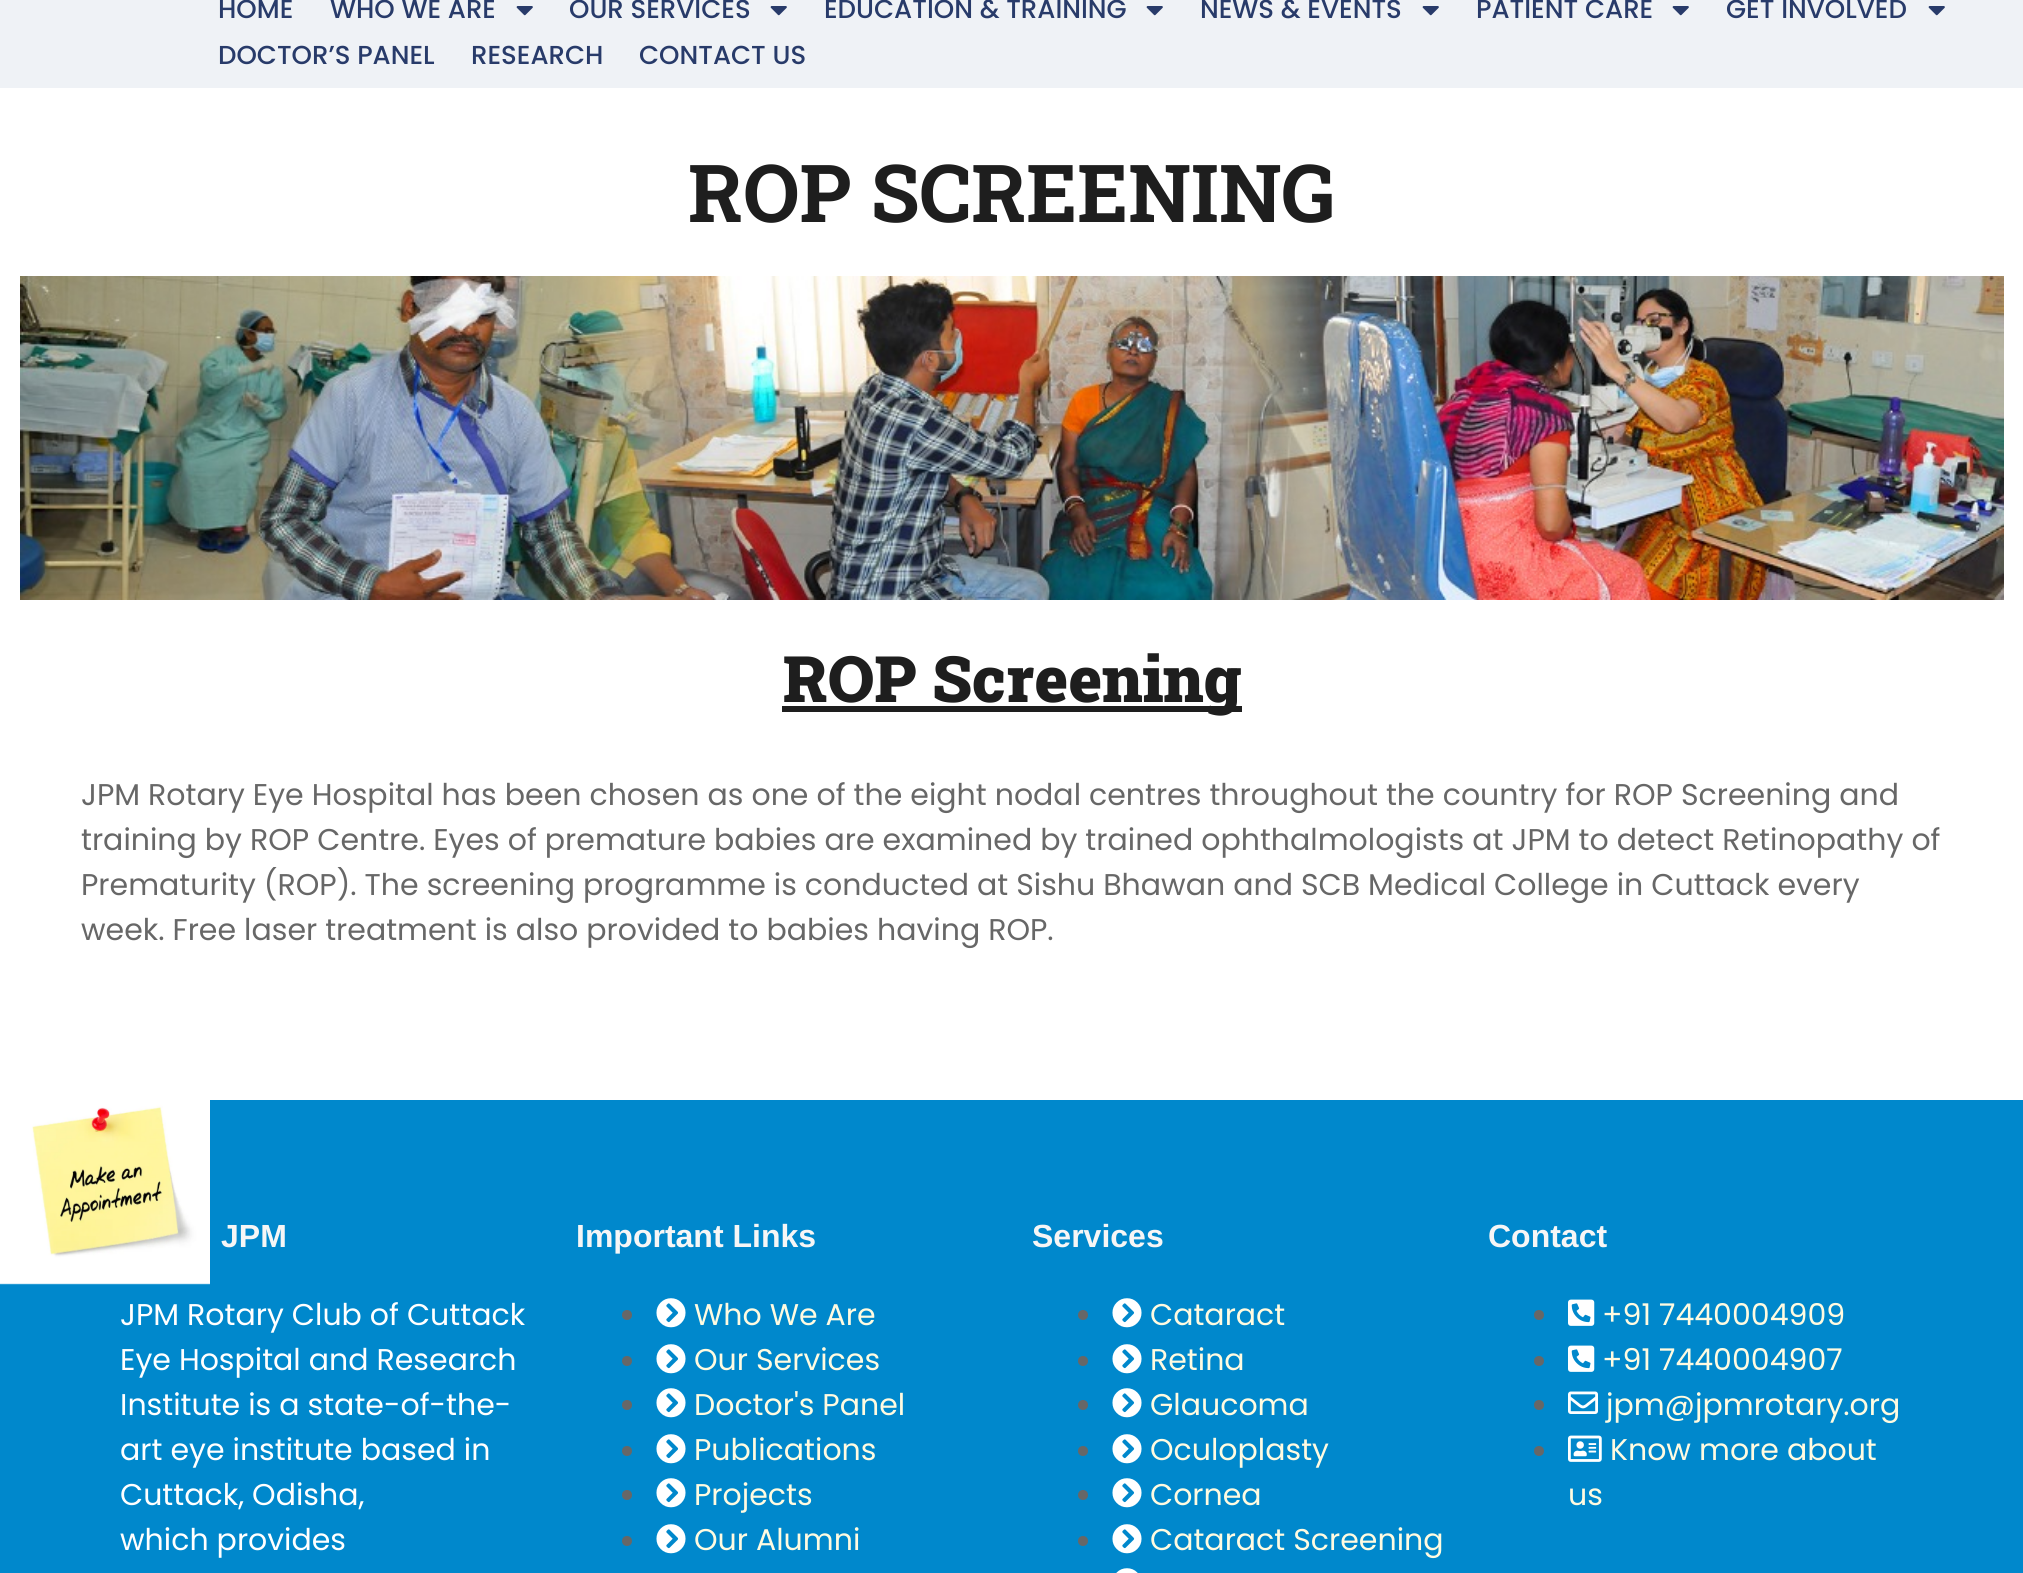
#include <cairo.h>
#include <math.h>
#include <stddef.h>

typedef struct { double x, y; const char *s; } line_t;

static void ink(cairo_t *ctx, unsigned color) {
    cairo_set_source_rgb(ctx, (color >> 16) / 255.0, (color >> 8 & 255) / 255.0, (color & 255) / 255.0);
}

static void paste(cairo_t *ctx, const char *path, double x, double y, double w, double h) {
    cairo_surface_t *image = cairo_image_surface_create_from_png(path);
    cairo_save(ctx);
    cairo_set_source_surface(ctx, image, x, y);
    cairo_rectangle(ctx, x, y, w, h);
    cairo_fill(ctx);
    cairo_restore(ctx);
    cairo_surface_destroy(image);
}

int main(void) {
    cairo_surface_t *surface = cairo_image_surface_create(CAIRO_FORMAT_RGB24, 2023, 1573);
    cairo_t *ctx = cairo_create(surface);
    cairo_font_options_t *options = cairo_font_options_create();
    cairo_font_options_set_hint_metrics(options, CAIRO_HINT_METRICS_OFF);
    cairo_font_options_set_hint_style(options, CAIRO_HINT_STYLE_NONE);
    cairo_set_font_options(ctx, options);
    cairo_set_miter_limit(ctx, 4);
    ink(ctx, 0xFFFFFF);
    cairo_paint(ctx);
    ink(ctx, 0xEFF2F6);
    cairo_rectangle(ctx, 0, 0, 2023, 88);
    cairo_fill(ctx);
    cairo_select_font_face(ctx, "Poppins Medium", CAIRO_FONT_SLANT_NORMAL, CAIRO_FONT_WEIGHT_NORMAL);
    cairo_set_font_size(ctx, 26);
    ink(ctx, 0x283B6A);
    cairo_move_to(ctx, 218, 18);
    cairo_show_text(ctx, "HOME");
    cairo_move_to(ctx, 330, 18);
    cairo_show_text(ctx, "WHO WE ARE");
    paste(ctx, "media/1.png", 516, 6, 17, 10);
    cairo_move_to(ctx, 569, 18);
    cairo_show_text(ctx, "OUR SERVICES");
    paste(ctx, "media/1.png", 770, 6, 17, 10);
    cairo_move_to(ctx, 824, 18);
    cairo_show_text(ctx, "EDUCATION & TRAINING");
    paste(ctx, "media/1.png", 1146, 6, 17, 10);
    cairo_move_to(ctx, 1200, 18);
    cairo_show_text(ctx, "NEWS & EVENTS");
    paste(ctx, "media/1.png", 1422, 6, 17, 10);
    cairo_move_to(ctx, 1476, 18);
    cairo_show_text(ctx, "PATIENT CARE");
    paste(ctx, "media/1.png", 1672, 6, 17, 10);
    cairo_move_to(ctx, 1726, 18);
    cairo_show_text(ctx, "GET INVOLVED");
    paste(ctx, "media/1.png", 1928, 6, 17, 10);
    {
        static const line_t items[] = {
            {218, 64, "DOCTOR’S PANEL"},
            {471, 64, "RESEARCH"},
            {639, 64, "CONTACT US"},
        };
        for (size_t i = 0; i < sizeof items / sizeof *items; i++) {
            cairo_move_to(ctx, items[i].x, items[i].y);
            cairo_show_text(ctx, items[i].s);
        }
    }
    cairo_select_font_face(ctx, "Roboto Slab", CAIRO_FONT_SLANT_NORMAL, CAIRO_FONT_WEIGHT_BOLD);
    cairo_set_font_size(ctx, 80);
    ink(ctx, 0x1E1E1E);
    cairo_move_to(ctx, 688, 222);
    cairo_show_text(ctx, "ROP SCREENING");
    paste(ctx, "media/2.png", 20, 276, 1984, 324);
    cairo_rectangle(ctx, 782, 706, 460, 6);
    cairo_fill(ctx);
    cairo_select_font_face(ctx, "Roboto Slab Black", CAIRO_FONT_SLANT_NORMAL, CAIRO_FONT_WEIGHT_NORMAL);
    cairo_set_font_size(ctx, 64);
    cairo_move_to(ctx, 783, 702);
    cairo_show_text(ctx, "ROP Screening");
    cairo_select_font_face(ctx, "Poppins", CAIRO_FONT_SLANT_NORMAL, CAIRO_FONT_WEIGHT_NORMAL);
    cairo_set_font_size(ctx, 30);
    ink(ctx, 0x676767);
    {
        static const line_t items[] = {
            {81, 805, "JPM Rotary Eye Hospital has been chosen as one of the eight nodal centres throughout the country for ROP Screening and"},
            {81, 850, "training by ROP Centre. Eyes of premature babies are examined by trained ophthalmologists at JPM to detect Retinopathy of"},
            {81, 895, "Prematurity (ROP). The screening programme is conducted at Sishu Bhawan and SCB Medical College in Cuttack every"},
            {81, 940, "week. Free laser treatment is also provided to babies having ROP."},
        };
        for (size_t i = 0; i < sizeof items / sizeof *items; i++) {
            cairo_move_to(ctx, items[i].x, items[i].y);
            cairo_show_text(ctx, items[i].s);
        }
    }
    ink(ctx, 0x0088CC);
    cairo_rectangle(ctx, 0, 1100, 2023, 473);
    cairo_fill(ctx);
    paste(ctx, "media/3.png", 0, 1100, 210, 185);
    cairo_select_font_face(ctx, "Liberation Sans", CAIRO_FONT_SLANT_NORMAL, CAIRO_FONT_WEIGHT_BOLD);
    cairo_set_font_size(ctx, 32);
    ink(ctx, 0xF6F6F6);
    cairo_move_to(ctx, 221, 1247);
    cairo_show_text(ctx, "JPM");
    cairo_select_font_face(ctx, "Poppins", CAIRO_FONT_SLANT_NORMAL, CAIRO_FONT_WEIGHT_NORMAL);
    cairo_set_font_size(ctx, 30);
    ink(ctx, 0xFFFFFF);
    {
        static const line_t items[] = {
            {120, 1325, "JPM Rotary Club of Cuttack"},
            {120, 1370, "Eye Hospital and Research"},
            {120, 1415, "Institute is a state-of-the-"},
            {120, 1460, "art eye institute based in"},
            {120, 1505, "Cuttack, Odisha,"},
            {120, 1550, "which provides"},
        };
        for (size_t i = 0; i < sizeof items / sizeof *items; i++) {
            cairo_move_to(ctx, items[i].x, items[i].y);
            cairo_show_text(ctx, items[i].s);
        }
    }
    cairo_select_font_face(ctx, "Liberation Sans", CAIRO_FONT_SLANT_NORMAL, CAIRO_FONT_WEIGHT_BOLD);
    cairo_set_font_size(ctx, 32);
    ink(ctx, 0xF6F6F6);
    cairo_move_to(ctx, 576, 1247);
    cairo_show_text(ctx, "Important Links");
    ink(ctx, 0x676767);
    cairo_new_path(ctx);
    cairo_arc(ctx, 627, 1315, 5, 0, 2 * M_PI);
    cairo_fill(ctx);
    paste(ctx, "media/4.png", 656, 1298, 30, 30);
    cairo_select_font_face(ctx, "Poppins", CAIRO_FONT_SLANT_NORMAL, CAIRO_FONT_WEIGHT_NORMAL);
    cairo_set_font_size(ctx, 30);
    ink(ctx, 0xFFFBE1);
    cairo_move_to(ctx, 694, 1325);
    cairo_show_text(ctx, "Who We Are");
    ink(ctx, 0x676767);
    cairo_new_path(ctx);
    cairo_arc(ctx, 627, 1361, 5, 0, 2 * M_PI);
    cairo_fill(ctx);
    paste(ctx, "media/4.png", 656, 1344, 30, 30);
    ink(ctx, 0xFFFBE1);
    cairo_move_to(ctx, 694, 1370);
    cairo_show_text(ctx, "Our Services");
    ink(ctx, 0x676767);
    cairo_new_path(ctx);
    cairo_arc(ctx, 627, 1405, 5, 0, 2 * M_PI);
    cairo_fill(ctx);
    paste(ctx, "media/4.png", 656, 1388, 30, 30);
    ink(ctx, 0xFFFBE1);
    cairo_move_to(ctx, 694, 1415);
    cairo_show_text(ctx, "Doctor's Panel");
    ink(ctx, 0x676767);
    cairo_new_path(ctx);
    cairo_arc(ctx, 627, 1451, 5, 0, 2 * M_PI);
    cairo_fill(ctx);
    paste(ctx, "media/4.png", 656, 1434, 30, 30);
    ink(ctx, 0xFFFBE1);
    cairo_move_to(ctx, 694, 1460);
    cairo_show_text(ctx, "Publications");
    ink(ctx, 0x676767);
    cairo_new_path(ctx);
    cairo_arc(ctx, 627, 1495, 5, 0, 2 * M_PI);
    cairo_fill(ctx);
    paste(ctx, "media/4.png", 656, 1478, 30, 30);
    ink(ctx, 0xFFFBE1);
    cairo_move_to(ctx, 694, 1505);
    cairo_show_text(ctx, "Projects");
    ink(ctx, 0x676767);
    cairo_new_path(ctx);
    cairo_arc(ctx, 627, 1541, 5, 0, 2 * M_PI);
    cairo_fill(ctx);
    paste(ctx, "media/4.png", 656, 1524, 30, 30);
    ink(ctx, 0xFFFBE1);
    cairo_move_to(ctx, 694, 1550);
    cairo_show_text(ctx, "Our Alumni");
    cairo_select_font_face(ctx, "Liberation Sans", CAIRO_FONT_SLANT_NORMAL, CAIRO_FONT_WEIGHT_BOLD);
    cairo_set_font_size(ctx, 32);
    ink(ctx, 0xF6F6F6);
    cairo_move_to(ctx, 1032, 1247);
    cairo_show_text(ctx, "Services");
    ink(ctx, 0x676767);
    cairo_new_path(ctx);
    cairo_arc(ctx, 1083, 1315, 5, 0, 2 * M_PI);
    cairo_fill(ctx);
    paste(ctx, "media/4.png", 1112, 1298, 30, 30);
    cairo_select_font_face(ctx, "Poppins", CAIRO_FONT_SLANT_NORMAL, CAIRO_FONT_WEIGHT_NORMAL);
    cairo_set_font_size(ctx, 30);
    ink(ctx, 0xFFFBE1);
    cairo_move_to(ctx, 1150, 1325);
    cairo_show_text(ctx, "Cataract");
    ink(ctx, 0x676767);
    cairo_new_path(ctx);
    cairo_arc(ctx, 1083, 1361, 5, 0, 2 * M_PI);
    cairo_fill(ctx);
    paste(ctx, "media/4.png", 1112, 1344, 30, 30);
    ink(ctx, 0xFFFBE1);
    cairo_move_to(ctx, 1150, 1370);
    cairo_show_text(ctx, "Retina");
    ink(ctx, 0x676767);
    cairo_new_path(ctx);
    cairo_arc(ctx, 1083, 1405, 5, 0, 2 * M_PI);
    cairo_fill(ctx);
    paste(ctx, "media/4.png", 1112, 1388, 30, 30);
    ink(ctx, 0xFFFBE1);
    cairo_move_to(ctx, 1150, 1415);
    cairo_show_text(ctx, "Glaucoma");
    ink(ctx, 0x676767);
    cairo_new_path(ctx);
    cairo_arc(ctx, 1083, 1451, 5, 0, 2 * M_PI);
    cairo_fill(ctx);
    paste(ctx, "media/4.png", 1112, 1434, 30, 30);
    ink(ctx, 0xFFFBE1);
    cairo_move_to(ctx, 1150, 1460);
    cairo_show_text(ctx, "Oculoplasty");
    ink(ctx, 0x676767);
    cairo_new_path(ctx);
    cairo_arc(ctx, 1083, 1495, 5, 0, 2 * M_PI);
    cairo_fill(ctx);
    paste(ctx, "media/4.png", 1112, 1478, 30, 30);
    ink(ctx, 0xFFFBE1);
    cairo_move_to(ctx, 1150, 1505);
    cairo_show_text(ctx, "Cornea");
    ink(ctx, 0x676767);
    cairo_new_path(ctx);
    cairo_arc(ctx, 1083, 1541, 5, 0, 2 * M_PI);
    cairo_fill(ctx);
    paste(ctx, "media/4.png", 1112, 1524, 30, 30);
    ink(ctx, 0xFFFBE1);
    cairo_move_to(ctx, 1150, 1550);
    cairo_show_text(ctx, "Cataract Screening");
    paste(ctx, "media/5.png", 1116, 1568, 22, 5);
    cairo_select_font_face(ctx, "Liberation Sans", CAIRO_FONT_SLANT_NORMAL, CAIRO_FONT_WEIGHT_BOLD);
    cairo_set_font_size(ctx, 32);
    ink(ctx, 0xF6F6F6);
    cairo_move_to(ctx, 1488, 1247);
    cairo_show_text(ctx, "Contact");
    ink(ctx, 0x676767);
    cairo_new_path(ctx);
    cairo_arc(ctx, 1539, 1315, 5, 0, 2 * M_PI);
    cairo_fill(ctx);
    paste(ctx, "media/6.png", 1568, 1299, 27, 27);
    cairo_select_font_face(ctx, "Poppins", CAIRO_FONT_SLANT_NORMAL, CAIRO_FONT_WEIGHT_NORMAL);
    cairo_set_font_size(ctx, 30);
    ink(ctx, 0xFFFBE1);
    cairo_move_to(ctx, 1602, 1325);
    cairo_show_text(ctx, "+91 7440004909");
    ink(ctx, 0x676767);
    cairo_new_path(ctx);
    cairo_arc(ctx, 1539, 1361, 5, 0, 2 * M_PI);
    cairo_fill(ctx);
    paste(ctx, "media/6.png", 1568, 1345, 27, 27);
    ink(ctx, 0xFFFBE1);
    cairo_move_to(ctx, 1602, 1370);
    cairo_show_text(ctx, "+91 7440004907");
    ink(ctx, 0x676767);
    cairo_new_path(ctx);
    cairo_arc(ctx, 1539, 1405, 5, 0, 2 * M_PI);
    cairo_fill(ctx);
    paste(ctx, "media/7.png", 1568, 1391, 30, 23);
    ink(ctx, 0xFFFBE1);
    cairo_move_to(ctx, 1606, 1415);
    cairo_show_text(ctx, "jpm@jpmrotary.org");
    ink(ctx, 0x676767);
    cairo_new_path(ctx);
    cairo_arc(ctx, 1539, 1451, 5, 0, 2 * M_PI);
    cairo_fill(ctx);
    paste(ctx, "media/8.png", 1568, 1435, 34, 27);
    ink(ctx, 0xFFFBE1);
    cairo_move_to(ctx, 1610, 1460);
    cairo_show_text(ctx, "Know more about");
    cairo_move_to(ctx, 1568, 1505);
    cairo_show_text(ctx, "us");
    cairo_surface_write_to_png(surface, "image.png");
    cairo_font_options_destroy(options);
    cairo_destroy(ctx);
    cairo_surface_destroy(surface);
    return 0;
}
